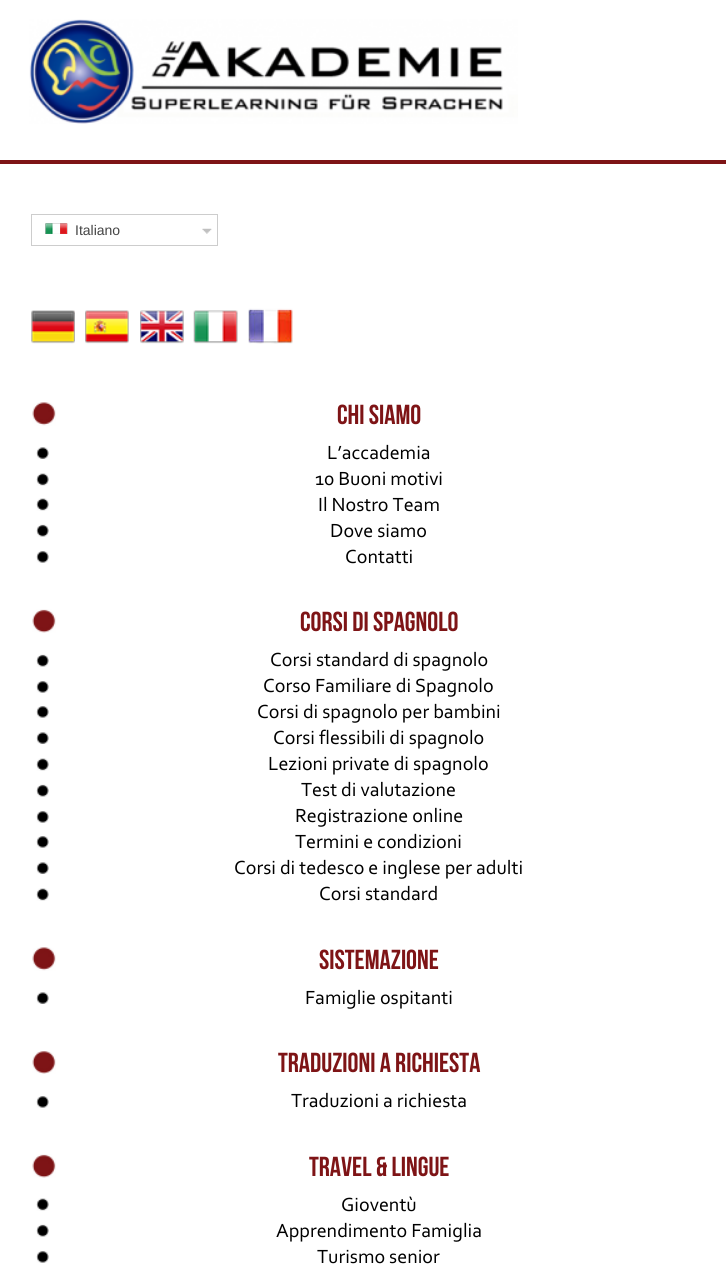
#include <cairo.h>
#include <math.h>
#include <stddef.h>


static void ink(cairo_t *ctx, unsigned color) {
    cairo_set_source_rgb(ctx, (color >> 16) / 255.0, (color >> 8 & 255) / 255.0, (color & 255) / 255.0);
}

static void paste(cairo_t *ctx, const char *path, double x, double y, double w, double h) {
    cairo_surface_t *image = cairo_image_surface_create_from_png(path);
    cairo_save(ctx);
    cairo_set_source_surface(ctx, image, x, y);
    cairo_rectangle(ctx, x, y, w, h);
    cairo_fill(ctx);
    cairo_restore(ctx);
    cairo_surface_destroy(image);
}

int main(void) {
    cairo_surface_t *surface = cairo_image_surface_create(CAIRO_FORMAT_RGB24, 726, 1270);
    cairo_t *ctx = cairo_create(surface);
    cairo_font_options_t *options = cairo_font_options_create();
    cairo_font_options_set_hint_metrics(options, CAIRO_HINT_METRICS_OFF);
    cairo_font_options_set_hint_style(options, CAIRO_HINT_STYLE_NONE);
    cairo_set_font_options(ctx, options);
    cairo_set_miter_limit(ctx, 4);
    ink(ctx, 0xFFFFFF);
    cairo_paint(ctx);
    ink(ctx, 0x7E1416);
    cairo_rectangle(ctx, 0, 160, 726, 4);
    cairo_fill(ctx);
    paste(ctx, "media/1.png", 29, 19, 489, 105);
    paste(ctx, "media/2.png", 202, 228, 10, 6);
    cairo_rectangle(ctx, 31.5, 214.5, 186, 31);
    ink(ctx, 0xCDCDCD);
    cairo_set_line_width(ctx, 1);
    cairo_stroke(ctx);
    paste(ctx, "media/3.png", 45, 223, 23, 11);
    cairo_select_font_face(ctx, "Liberation Sans", CAIRO_FONT_SLANT_NORMAL, CAIRO_FONT_WEIGHT_NORMAL);
    cairo_set_font_size(ctx, 14);
    ink(ctx, 0x444444);
    cairo_move_to(ctx, 75, 235);
    cairo_show_text(ctx, "Italiano");
    paste(ctx, "media/4.png", 31, 310, 44, 34);
    paste(ctx, "media/5.png", 85, 310, 44, 34);
    paste(ctx, "media/6.png", 140, 310, 44, 34);
    paste(ctx, "media/7.png", 193, 310, 45, 34);
    paste(ctx, "media/8.png", 248, 308, 45, 36);
    paste(ctx, "media/9.png", 32, 402, 24, 24);
    cairo_select_font_face(ctx, "Bebas Neue", CAIRO_FONT_SLANT_NORMAL, CAIRO_FONT_WEIGHT_NORMAL);
    cairo_set_font_size(ctx, 27.5);
    ink(ctx, 0x7E1416);
    cairo_move_to(ctx, 337, 424);
    cairo_show_text(ctx, "CHI SIAMO");
    paste(ctx, "media/10.png", 36, 447, 13, 12);
    cairo_select_font_face(ctx, "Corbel", CAIRO_FONT_SLANT_NORMAL, CAIRO_FONT_WEIGHT_NORMAL);
    cairo_set_font_size(ctx, 20);
    ink(ctx, 0x000000);
    cairo_move_to(ctx, 327, 459);
    cairo_show_text(ctx, "L’accademia");
    paste(ctx, "media/11.png", 36, 473, 13, 13);
    cairo_move_to(ctx, 315, 485);
    cairo_show_text(ctx, "10 Buoni motivi");
    paste(ctx, "media/11.png", 36, 498, 13, 13);
    cairo_move_to(ctx, 318, 511);
    cairo_show_text(ctx, "Il Nostro Team");
    paste(ctx, "media/12.png", 36, 524, 13, 13);
    cairo_move_to(ctx, 330, 537);
    cairo_show_text(ctx, "Dove siamo");
    paste(ctx, "media/13.png", 36, 551, 13, 12);
    cairo_move_to(ctx, 345, 563);
    cairo_show_text(ctx, "Contatti");
    paste(ctx, "media/14.png", 32, 609, 24, 24);
    cairo_select_font_face(ctx, "Bebas Neue", CAIRO_FONT_SLANT_NORMAL, CAIRO_FONT_WEIGHT_NORMAL);
    cairo_set_font_size(ctx, 27.5);
    ink(ctx, 0x7E1416);
    cairo_move_to(ctx, 300, 631);
    cairo_show_text(ctx, "CORSI DI SPAGNOLO");
    paste(ctx, "media/12.png", 36, 654, 13, 13);
    cairo_select_font_face(ctx, "Corbel", CAIRO_FONT_SLANT_NORMAL, CAIRO_FONT_WEIGHT_NORMAL);
    cairo_set_font_size(ctx, 20);
    ink(ctx, 0x000000);
    cairo_move_to(ctx, 270, 666);
    cairo_show_text(ctx, "Corsi standard di spagnolo");
    paste(ctx, "media/13.png", 36, 681, 13, 12);
    cairo_move_to(ctx, 263, 692);
    cairo_show_text(ctx, "Corso Familiare di Spagnolo");
    paste(ctx, "media/13.png", 36, 706, 13, 12);
    cairo_move_to(ctx, 257, 718);
    cairo_show_text(ctx, "Corsi di spagnolo per bambini");
    paste(ctx, "media/10.png", 36, 732, 13, 12);
    cairo_move_to(ctx, 273, 744);
    cairo_show_text(ctx, "Corsi flessibili di spagnolo");
    paste(ctx, "media/11.png", 36, 758, 13, 13);
    cairo_move_to(ctx, 268, 770);
    cairo_show_text(ctx, "Lezioni private di spagnolo");
    paste(ctx, "media/12.png", 36, 784, 13, 13);
    cairo_move_to(ctx, 301, 796);
    cairo_show_text(ctx, "Test di valutazione");
    paste(ctx, "media/13.png", 36, 811, 13, 12);
    cairo_move_to(ctx, 295, 822);
    cairo_show_text(ctx, "Registrazione online");
    paste(ctx, "media/13.png", 36, 836, 13, 12);
    cairo_move_to(ctx, 295, 848);
    cairo_show_text(ctx, "Termini e condizioni");
    paste(ctx, "media/10.png", 36, 862, 13, 12);
    cairo_move_to(ctx, 234, 874);
    cairo_show_text(ctx, "Corsi di tedesco e inglese per adulti");
    paste(ctx, "media/11.png", 36, 888, 13, 13);
    cairo_move_to(ctx, 319, 900);
    cairo_show_text(ctx, "Corsi standard");
    paste(ctx, "media/9.png", 32, 947, 24, 24);
    cairo_select_font_face(ctx, "Bebas Neue", CAIRO_FONT_SLANT_NORMAL, CAIRO_FONT_WEIGHT_NORMAL);
    cairo_set_font_size(ctx, 27.5);
    ink(ctx, 0x7E1416);
    cairo_move_to(ctx, 319, 969);
    cairo_show_text(ctx, "SISTEMAZIONE");
    paste(ctx, "media/10.png", 36, 992, 13, 12);
    cairo_select_font_face(ctx, "Corbel", CAIRO_FONT_SLANT_NORMAL, CAIRO_FONT_WEIGHT_NORMAL);
    cairo_set_font_size(ctx, 20);
    ink(ctx, 0x000000);
    cairo_move_to(ctx, 305, 1004);
    cairo_show_text(ctx, "Famiglie ospitanti");
    paste(ctx, "media/15.png", 32, 1051, 24, 23);
    cairo_select_font_face(ctx, "Bebas Neue", CAIRO_FONT_SLANT_NORMAL, CAIRO_FONT_WEIGHT_NORMAL);
    cairo_set_font_size(ctx, 27.5);
    ink(ctx, 0x7E1416);
    cairo_move_to(ctx, 278, 1072);
    cairo_show_text(ctx, "TRADUZIONI A RICHIESTA");
    paste(ctx, "media/13.png", 36, 1096, 13, 12);
    cairo_select_font_face(ctx, "Corbel", CAIRO_FONT_SLANT_NORMAL, CAIRO_FONT_WEIGHT_NORMAL);
    cairo_set_font_size(ctx, 20);
    ink(ctx, 0x000000);
    cairo_move_to(ctx, 291, 1107);
    cairo_show_text(ctx, "Traduzioni a richiesta");
    paste(ctx, "media/16.png", 32, 1154, 24, 24);
    cairo_select_font_face(ctx, "Bebas Neue", CAIRO_FONT_SLANT_NORMAL, CAIRO_FONT_WEIGHT_NORMAL);
    cairo_set_font_size(ctx, 27.5);
    ink(ctx, 0x7E1416);
    cairo_move_to(ctx, 309, 1176);
    cairo_show_text(ctx, "TRAVEL & LINGUE");
    paste(ctx, "media/11.png", 36, 1198, 13, 13);
    cairo_select_font_face(ctx, "Corbel", CAIRO_FONT_SLANT_NORMAL, CAIRO_FONT_WEIGHT_NORMAL);
    cairo_set_font_size(ctx, 20);
    ink(ctx, 0x000000);
    cairo_move_to(ctx, 341, 1211);
    cairo_show_text(ctx, "Gioventù");
    paste(ctx, "media/12.png", 36, 1224, 13, 13);
    cairo_move_to(ctx, 276, 1237);
    cairo_show_text(ctx, "Apprendimento Famiglia");
    paste(ctx, "media/13.png", 36, 1251, 13, 12);
    cairo_move_to(ctx, 317, 1263);
    cairo_show_text(ctx, "Turismo senior");
    cairo_surface_write_to_png(surface, "image.png");
    cairo_font_options_destroy(options);
    cairo_destroy(ctx);
    cairo_surface_destroy(surface);
    return 0;
}
